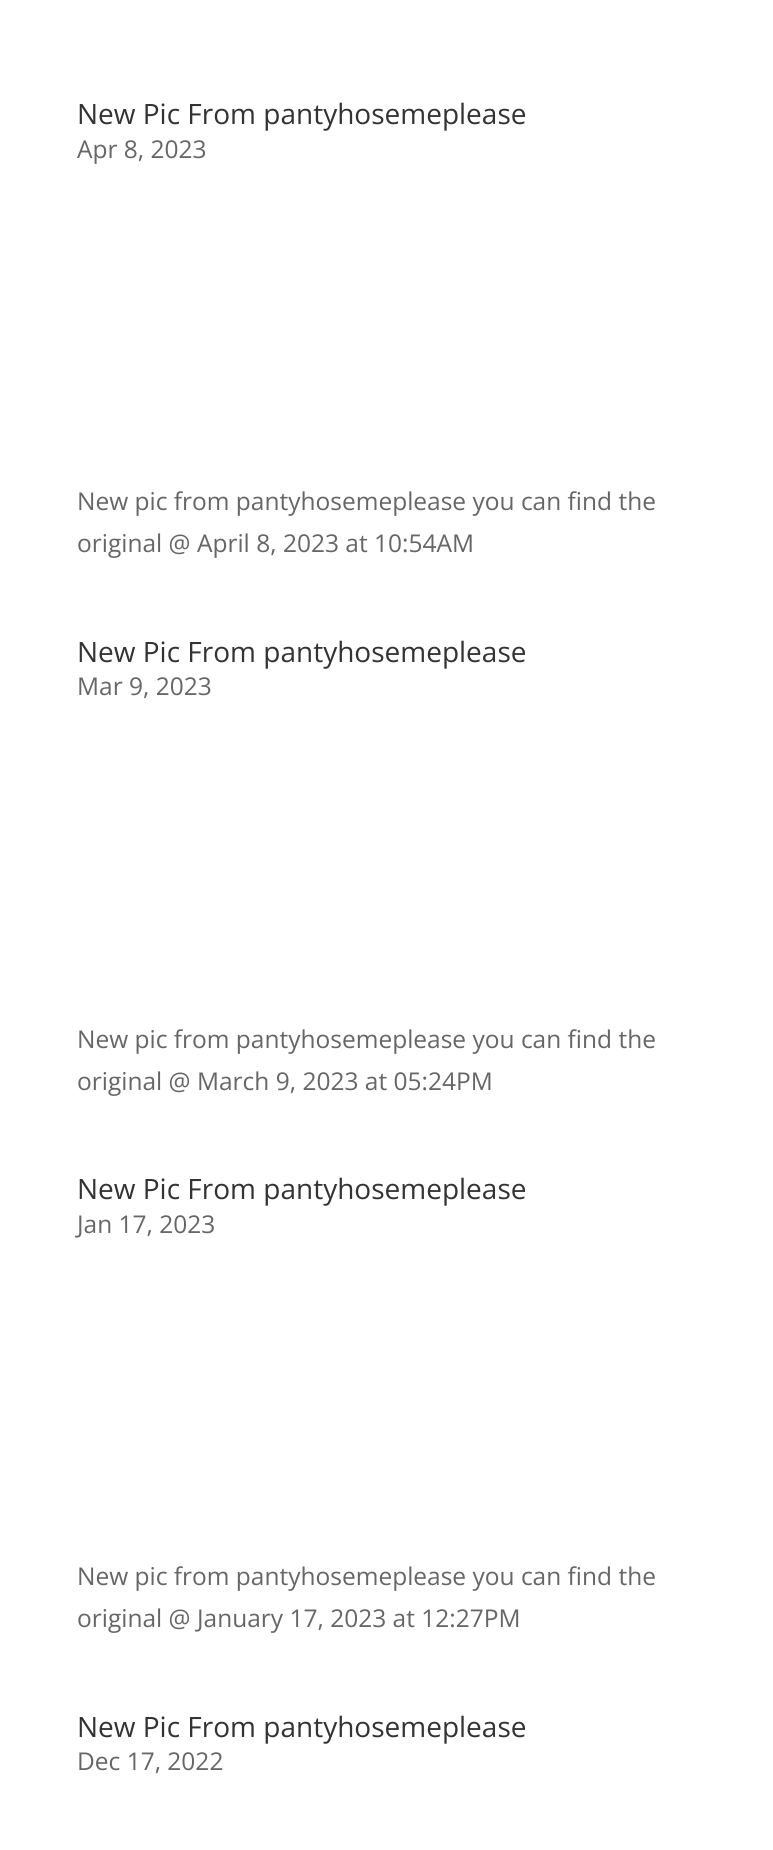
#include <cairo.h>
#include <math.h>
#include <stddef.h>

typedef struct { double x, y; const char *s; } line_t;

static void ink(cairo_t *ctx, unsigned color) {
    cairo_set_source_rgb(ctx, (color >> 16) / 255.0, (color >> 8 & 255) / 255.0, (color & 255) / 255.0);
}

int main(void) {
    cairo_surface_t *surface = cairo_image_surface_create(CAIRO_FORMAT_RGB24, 773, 1850);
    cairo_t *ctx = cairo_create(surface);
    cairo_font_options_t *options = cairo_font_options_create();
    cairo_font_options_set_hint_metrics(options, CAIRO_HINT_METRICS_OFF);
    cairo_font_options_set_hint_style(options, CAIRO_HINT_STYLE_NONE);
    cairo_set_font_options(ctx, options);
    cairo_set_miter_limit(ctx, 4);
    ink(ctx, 0xFFFFFF);
    cairo_paint(ctx);
    cairo_select_font_face(ctx, "Open Sans", CAIRO_FONT_SLANT_NORMAL, CAIRO_FONT_WEIGHT_NORMAL);
    cairo_set_font_size(ctx, 28);
    ink(ctx, 0x333333);
    cairo_move_to(ctx, 77, 124);
    cairo_show_text(ctx, "New Pic From pantyhosemeplease");
    cairo_set_font_size(ctx, 24.5);
    ink(ctx, 0x666666);
    {
        static const line_t items[] = {
            {77, 158, "Apr 8, 2023"},
            {77, 510, "New pic from pantyhosemeplease you can find the"},
            {77, 552, "original @ April 8, 2023 at 10:54AM"},
        };
        for (size_t i = 0; i < sizeof items / sizeof *items; i++) {
            cairo_move_to(ctx, items[i].x, items[i].y);
            cairo_show_text(ctx, items[i].s);
        }
    }
    cairo_set_font_size(ctx, 28);
    ink(ctx, 0x333333);
    cairo_move_to(ctx, 77, 662);
    cairo_show_text(ctx, "New Pic From pantyhosemeplease");
    cairo_set_font_size(ctx, 24.5);
    ink(ctx, 0x666666);
    {
        static const line_t items[] = {
            {77, 695, "Mar 9, 2023"},
            {77, 1048, "New pic from pantyhosemeplease you can find the"},
            {77, 1090, "original @ March 9, 2023 at 05:24PM"},
        };
        for (size_t i = 0; i < sizeof items / sizeof *items; i++) {
            cairo_move_to(ctx, items[i].x, items[i].y);
            cairo_show_text(ctx, items[i].s);
        }
    }
    cairo_set_font_size(ctx, 28);
    ink(ctx, 0x333333);
    cairo_move_to(ctx, 77, 1199);
    cairo_show_text(ctx, "New Pic From pantyhosemeplease");
    cairo_set_font_size(ctx, 24.5);
    ink(ctx, 0x666666);
    {
        static const line_t items[] = {
            {77, 1233, "Jan 17, 2023"},
            {77, 1585, "New pic from pantyhosemeplease you can find the"},
            {77, 1627, "original @ January 17, 2023 at 12:27PM"},
        };
        for (size_t i = 0; i < sizeof items / sizeof *items; i++) {
            cairo_move_to(ctx, items[i].x, items[i].y);
            cairo_show_text(ctx, items[i].s);
        }
    }
    cairo_set_font_size(ctx, 28);
    ink(ctx, 0x333333);
    cairo_move_to(ctx, 77, 1737);
    cairo_show_text(ctx, "New Pic From pantyhosemeplease");
    cairo_set_font_size(ctx, 24.5);
    ink(ctx, 0x666666);
    cairo_move_to(ctx, 77, 1770);
    cairo_show_text(ctx, "Dec 17, 2022");
    cairo_surface_write_to_png(surface, "image.png");
    cairo_font_options_destroy(options);
    cairo_destroy(ctx);
    cairo_surface_destroy(surface);
    return 0;
}
